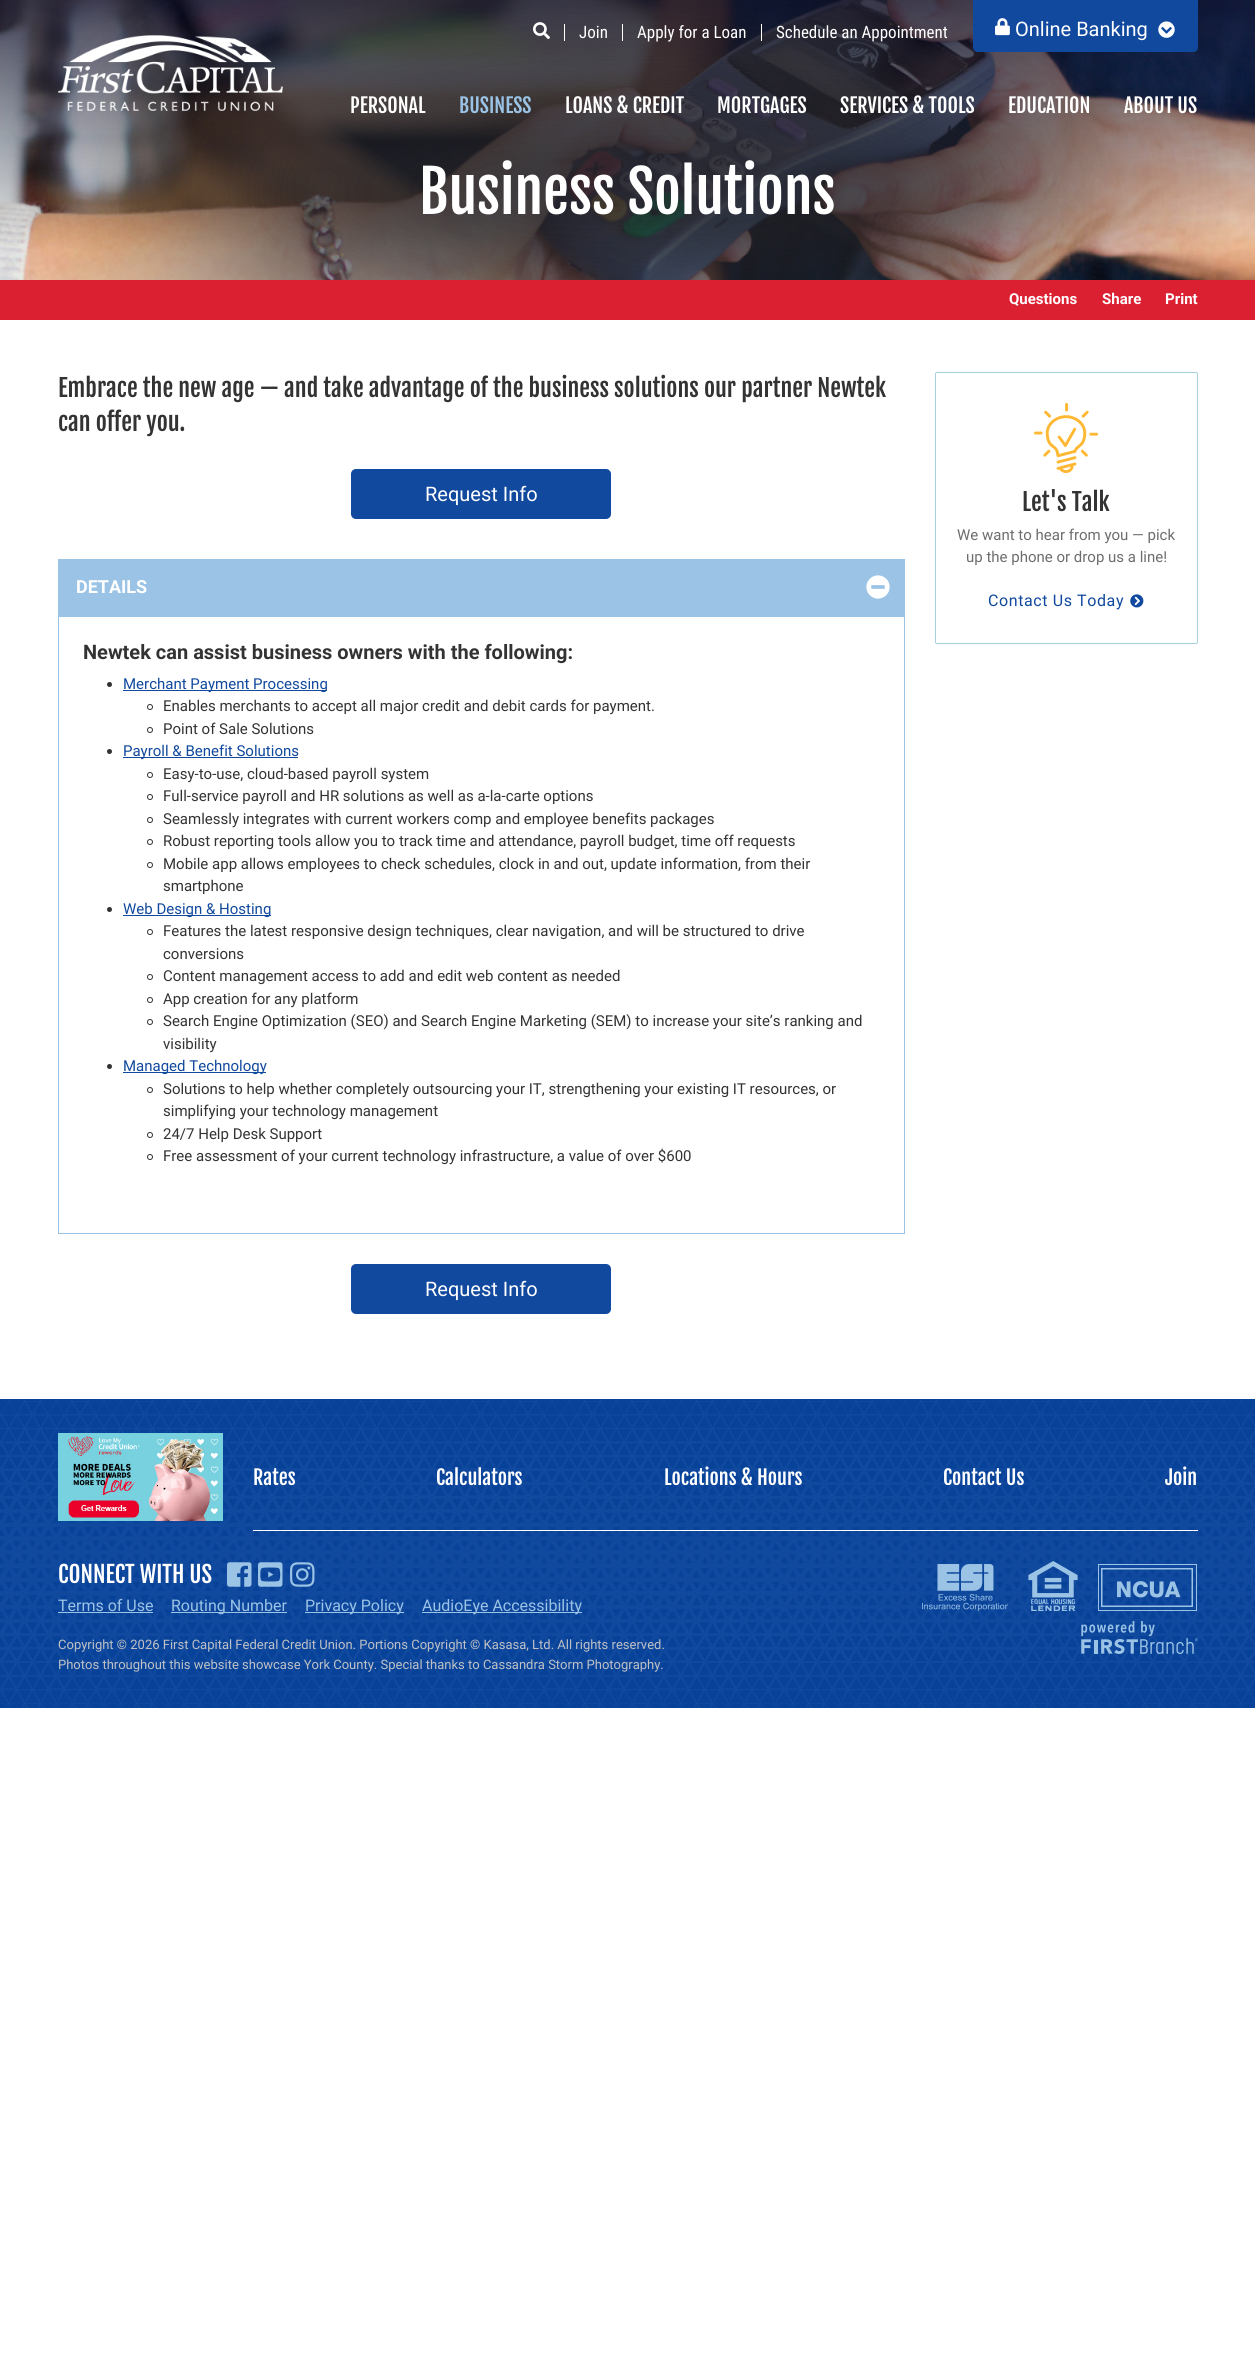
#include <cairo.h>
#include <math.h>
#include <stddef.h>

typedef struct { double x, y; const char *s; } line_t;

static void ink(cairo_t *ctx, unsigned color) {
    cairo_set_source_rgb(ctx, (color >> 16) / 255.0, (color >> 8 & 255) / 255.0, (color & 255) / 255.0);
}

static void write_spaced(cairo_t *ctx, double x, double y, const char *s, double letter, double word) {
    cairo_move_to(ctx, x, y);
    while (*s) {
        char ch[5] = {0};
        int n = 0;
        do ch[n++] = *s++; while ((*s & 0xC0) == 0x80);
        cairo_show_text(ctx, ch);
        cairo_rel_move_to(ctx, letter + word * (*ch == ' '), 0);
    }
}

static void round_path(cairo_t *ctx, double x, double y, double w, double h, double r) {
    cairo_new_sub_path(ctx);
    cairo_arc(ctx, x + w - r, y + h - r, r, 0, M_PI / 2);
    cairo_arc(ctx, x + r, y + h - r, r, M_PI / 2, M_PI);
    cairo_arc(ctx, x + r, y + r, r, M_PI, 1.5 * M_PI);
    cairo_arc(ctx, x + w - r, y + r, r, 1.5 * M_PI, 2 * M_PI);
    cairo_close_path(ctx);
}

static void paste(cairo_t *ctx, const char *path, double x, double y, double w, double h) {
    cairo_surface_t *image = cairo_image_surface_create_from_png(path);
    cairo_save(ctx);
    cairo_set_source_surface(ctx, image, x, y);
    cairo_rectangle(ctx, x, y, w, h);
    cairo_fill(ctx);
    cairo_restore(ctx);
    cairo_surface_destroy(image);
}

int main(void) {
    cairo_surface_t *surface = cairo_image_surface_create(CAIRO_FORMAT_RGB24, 1255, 2368);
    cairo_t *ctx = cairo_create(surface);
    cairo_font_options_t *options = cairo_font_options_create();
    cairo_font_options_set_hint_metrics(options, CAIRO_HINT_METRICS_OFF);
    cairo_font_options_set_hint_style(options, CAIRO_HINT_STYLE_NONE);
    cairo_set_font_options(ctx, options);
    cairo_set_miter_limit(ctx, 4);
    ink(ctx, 0xFFFFFF);
    cairo_paint(ctx);
    paste(ctx, "media/5.png", 0, 0, 1255, 280);
    paste(ctx, "media/6.png", 29, 0, 1200, 280);
    paste(ctx, "media/1.png", 58, 35, 225, 76);
    paste(ctx, "media/2.png", 533, 22, 17, 18);
    ink(ctx, 0xFFFFFF);
    cairo_rectangle(ctx, 564, 24, 1, 17);
    cairo_fill(ctx);
    cairo_select_font_face(ctx, "Roboto Condensed", CAIRO_FONT_SLANT_NORMAL, CAIRO_FONT_WEIGHT_NORMAL);
    cairo_set_font_size(ctx, 17);
    cairo_move_to(ctx, 579, 38);
    cairo_show_text(ctx, "Join");
    cairo_rectangle(ctx, 622, 24, 1, 17);
    cairo_fill(ctx);
    cairo_move_to(ctx, 637, 38);
    cairo_show_text(ctx, "Apply for a Loan");
    cairo_rectangle(ctx, 761, 24, 1, 17);
    cairo_fill(ctx);
    cairo_move_to(ctx, 776, 38);
    cairo_show_text(ctx, "Schedule an Appointment");
    ink(ctx, 0x10499E);
    cairo_new_path(ctx);
    cairo_move_to(ctx, 973, 0);
    cairo_line_to(ctx, 1198, 0);
    cairo_line_to(ctx, 1198, 47);
    cairo_curve_to(ctx, 1198, 50, 1196, 52, 1193, 52);
    cairo_line_to(ctx, 978, 52);
    cairo_curve_to(ctx, 975, 52, 973, 50, 973, 47);
    cairo_close_path(ctx);
    cairo_fill(ctx);
    paste(ctx, "media/3.png", 995, 18, 15, 18);
    cairo_select_font_face(ctx, "Roboto", CAIRO_FONT_SLANT_NORMAL, CAIRO_FONT_WEIGHT_NORMAL);
    cairo_set_font_size(ctx, 20);
    ink(ctx, 0xFFFFFF);
    cairo_move_to(ctx, 1015, 36);
    cairo_show_text(ctx, "Online Banking");
    paste(ctx, "media/4.png", 1158, 21, 17, 17);
    cairo_select_font_face(ctx, "Fjalla One", CAIRO_FONT_SLANT_NORMAL, CAIRO_FONT_WEIGHT_NORMAL);
    cairo_move_to(ctx, 350, 113);
    cairo_show_text(ctx, "PERSONAL");
    ink(ctx, 0x9AC3E6);
    cairo_move_to(ctx, 459, 113);
    cairo_show_text(ctx, "BUSINESS");
    ink(ctx, 0xFFFFFF);
    {
        static const line_t items[] = {
            {565, 113, "LOANS & CREDIT"},
            {717, 113, "MORTGAGES"},
            {840, 113, "SERVICES & TOOLS"},
            {1008, 113, "EDUCATION"},
            {1124, 113, "ABOUT US"},
        };
        for (size_t i = 0; i < sizeof items / sizeof *items; i++) {
            cairo_move_to(ctx, items[i].x, items[i].y);
            cairo_show_text(ctx, items[i].s);
        }
    }
    cairo_set_font_size(ctx, 58);
    cairo_move_to(ctx, 419, 214);
    cairo_show_text(ctx, "Business Solutions");
    ink(ctx, 0xDB2032);
    cairo_rectangle(ctx, 0, 280, 1255, 40);
    cairo_fill(ctx);
    cairo_select_font_face(ctx, "Roboto", CAIRO_FONT_SLANT_NORMAL, CAIRO_FONT_WEIGHT_BOLD);
    cairo_set_font_size(ctx, 15);
    ink(ctx, 0xFFFFFF);
    {
        static const line_t items[] = {
            {1009, 304, "Questions"},
            {1102, 304, "Share"},
            {1165, 304, "Print"},
        };
        for (size_t i = 0; i < sizeof items / sizeof *items; i++) {
            cairo_move_to(ctx, items[i].x, items[i].y);
            cairo_show_text(ctx, items[i].s);
        }
    }
    cairo_select_font_face(ctx, "Fjalla One", CAIRO_FONT_SLANT_NORMAL, CAIRO_FONT_WEIGHT_NORMAL);
    cairo_set_font_size(ctx, 24);
    ink(ctx, 0x333333);
    cairo_move_to(ctx, 58, 397);
    cairo_show_text(ctx, "Embrace the new age — and take advantage of the business solutions our partner Newtek");
    cairo_move_to(ctx, 58, 431);
    cairo_show_text(ctx, "can offer you.");
    ink(ctx, 0x10499E);
    round_path(ctx, 351, 469, 260, 50, 5);
    cairo_fill(ctx);
    cairo_select_font_face(ctx, "Roboto", CAIRO_FONT_SLANT_NORMAL, CAIRO_FONT_WEIGHT_NORMAL);
    cairo_set_font_size(ctx, 20);
    ink(ctx, 0xFFFFFF);
    cairo_move_to(ctx, 425, 501);
    cairo_show_text(ctx, "Request Info");
    ink(ctx, 0x9AC3E6);
    cairo_rectangle(ctx, 58, 559, 847, 57);
    cairo_fill(ctx);
    cairo_select_font_face(ctx, "Roboto", CAIRO_FONT_SLANT_NORMAL, CAIRO_FONT_WEIGHT_BOLD);
    cairo_set_font_size(ctx, 18);
    ink(ctx, 0xFFFFFF);
    cairo_move_to(ctx, 76, 593);
    cairo_show_text(ctx, "DETAILS");
    paste(ctx, "media/7.png", 866, 575, 24, 24);
    cairo_rectangle(ctx, 58.5, 616.5, 846, 617);
    ink(ctx, 0x9AC3E6);
    cairo_set_line_width(ctx, 1);
    cairo_stroke(ctx);
    cairo_set_font_size(ctx, 20);
    ink(ctx, 0x333333);
    cairo_move_to(ctx, 83, 659);
    cairo_show_text(ctx, "Newtek can assist business owners with the following:");
    cairo_new_path(ctx);
    cairo_arc(ctx, 109.5, 684.5, 2.5, 0, 2 * M_PI);
    cairo_fill(ctx);
    ink(ctx, 0x10499E);
    cairo_rectangle(ctx, 123, 690, 204, 1);
    cairo_fill(ctx);
    cairo_select_font_face(ctx, "Roboto", CAIRO_FONT_SLANT_NORMAL, CAIRO_FONT_WEIGHT_NORMAL);
    cairo_set_font_size(ctx, 15);
    cairo_move_to(ctx, 123, 689);
    cairo_show_text(ctx, "Merchant Payment Processing");
    cairo_new_path(ctx);
    cairo_arc(ctx, 150, 707, 2.5, 0, 2 * M_PI);
    ink(ctx, 0x333333);
    cairo_stroke(ctx);
    cairo_move_to(ctx, 163, 711);
    cairo_show_text(ctx, "Enables merchants to accept all major credit and debit cards for payment.");
    cairo_new_path(ctx);
    cairo_arc(ctx, 150, 730, 2.5, 0, 2 * M_PI);
    cairo_stroke(ctx);
    cairo_move_to(ctx, 163, 734);
    cairo_show_text(ctx, "Point of Sale Solutions");
    cairo_new_path(ctx);
    cairo_arc(ctx, 109.5, 751.5, 2.5, 0, 2 * M_PI);
    cairo_fill(ctx);
    ink(ctx, 0x10499E);
    cairo_rectangle(ctx, 123, 757, 175, 1);
    cairo_fill(ctx);
    cairo_move_to(ctx, 123, 756);
    cairo_show_text(ctx, "Payroll & Benefit Solutions");
    cairo_new_path(ctx);
    cairo_arc(ctx, 150, 775, 2.5, 0, 2 * M_PI);
    ink(ctx, 0x333333);
    cairo_stroke(ctx);
    cairo_move_to(ctx, 163, 779);
    cairo_show_text(ctx, "Easy-to-use, cloud-based payroll system");
    cairo_new_path(ctx);
    cairo_arc(ctx, 150, 797, 2.5, 0, 2 * M_PI);
    cairo_stroke(ctx);
    cairo_move_to(ctx, 163, 801);
    cairo_show_text(ctx, "Full-service payroll and HR solutions as well as a-la-carte options");
    cairo_new_path(ctx);
    cairo_arc(ctx, 150, 820, 2.5, 0, 2 * M_PI);
    cairo_stroke(ctx);
    cairo_move_to(ctx, 163, 824);
    cairo_show_text(ctx, "Seamlessly integrates with current workers comp and employee benefits packages");
    cairo_new_path(ctx);
    cairo_arc(ctx, 150, 842, 2.5, 0, 2 * M_PI);
    cairo_stroke(ctx);
    cairo_move_to(ctx, 163, 846);
    cairo_show_text(ctx, "Robust reporting tools allow you to track time and attendance, payroll budget, time off requests");
    cairo_new_path(ctx);
    cairo_arc(ctx, 150, 865, 2.5, 0, 2 * M_PI);
    cairo_stroke(ctx);
    cairo_move_to(ctx, 163, 869);
    cairo_show_text(ctx, "Mobile app allows employees to check schedules, clock in and out, update information, from their");
    cairo_move_to(ctx, 163, 891);
    cairo_show_text(ctx, "smartphone");
    cairo_new_path(ctx);
    cairo_arc(ctx, 109.5, 909.5, 2.5, 0, 2 * M_PI);
    cairo_fill(ctx);
    ink(ctx, 0x10499E);
    cairo_rectangle(ctx, 123, 915, 148, 1);
    cairo_fill(ctx);
    cairo_move_to(ctx, 123, 914);
    cairo_show_text(ctx, "Web Design & Hosting");
    cairo_new_path(ctx);
    cairo_arc(ctx, 150, 932, 2.5, 0, 2 * M_PI);
    ink(ctx, 0x333333);
    cairo_stroke(ctx);
    cairo_move_to(ctx, 163, 936);
    cairo_show_text(ctx, "Features the latest responsive design techniques, clear navigation, and will be structured to drive");
    cairo_move_to(ctx, 163, 959);
    cairo_show_text(ctx, "conversions");
    cairo_new_path(ctx);
    cairo_arc(ctx, 150, 977, 2.5, 0, 2 * M_PI);
    cairo_stroke(ctx);
    cairo_move_to(ctx, 163, 981);
    cairo_show_text(ctx, "Content management access to add and edit web content as needed");
    cairo_new_path(ctx);
    cairo_arc(ctx, 150, 1000, 2.5, 0, 2 * M_PI);
    cairo_stroke(ctx);
    cairo_move_to(ctx, 163, 1004);
    cairo_show_text(ctx, "App creation for any platform");
    cairo_new_path(ctx);
    cairo_arc(ctx, 150, 1022, 2.5, 0, 2 * M_PI);
    cairo_stroke(ctx);
    cairo_move_to(ctx, 163, 1026);
    cairo_show_text(ctx, "Search Engine Optimization (SEO) and Search Engine Marketing (SEM) to increase your site’s ranking and");
    cairo_move_to(ctx, 163, 1049);
    cairo_show_text(ctx, "visibility");
    cairo_new_path(ctx);
    cairo_arc(ctx, 109.5, 1066.5, 2.5, 0, 2 * M_PI);
    cairo_fill(ctx);
    ink(ctx, 0x10499E);
    cairo_rectangle(ctx, 123, 1072, 143, 1);
    cairo_fill(ctx);
    cairo_move_to(ctx, 123, 1071);
    cairo_show_text(ctx, "Managed Technology");
    cairo_new_path(ctx);
    cairo_arc(ctx, 150, 1090, 2.5, 0, 2 * M_PI);
    ink(ctx, 0x333333);
    cairo_stroke(ctx);
    cairo_move_to(ctx, 163, 1094);
    cairo_show_text(ctx, "Solutions to help whether completely outsourcing your IT, strengthening your existing IT resources, or");
    cairo_move_to(ctx, 163, 1116);
    cairo_show_text(ctx, "simplifying your technology management");
    cairo_new_path(ctx);
    cairo_arc(ctx, 150, 1135, 2.5, 0, 2 * M_PI);
    cairo_stroke(ctx);
    cairo_move_to(ctx, 163, 1139);
    cairo_show_text(ctx, "24/7 Help Desk Support");
    cairo_new_path(ctx);
    cairo_arc(ctx, 150, 1157, 2.5, 0, 2 * M_PI);
    cairo_stroke(ctx);
    cairo_move_to(ctx, 163, 1161);
    cairo_show_text(ctx, "Free assessment of your current technology infrastructure, a value of over $600");
    ink(ctx, 0x10499E);
    round_path(ctx, 351, 1264, 260, 50, 5);
    cairo_fill(ctx);
    cairo_set_font_size(ctx, 20);
    ink(ctx, 0xFFFFFF);
    cairo_move_to(ctx, 425, 1296);
    cairo_show_text(ctx, "Request Info");
    round_path(ctx, 935.5, 372.5, 262, 271, 1.5);
    ink(ctx, 0xA8D0DA);
    cairo_stroke(ctx);
    paste(ctx, "media/8.png", 1034, 403, 64, 70);
    cairo_select_font_face(ctx, "Fjalla One", CAIRO_FONT_SLANT_NORMAL, CAIRO_FONT_WEIGHT_NORMAL);
    cairo_set_font_size(ctx, 24);
    ink(ctx, 0x333333);
    cairo_move_to(ctx, 1022, 511);
    cairo_show_text(ctx, "Let's Talk");
    cairo_select_font_face(ctx, "Roboto", CAIRO_FONT_SLANT_NORMAL, CAIRO_FONT_WEIGHT_NORMAL);
    cairo_set_font_size(ctx, 15);
    ink(ctx, 0x6D6D6D);
    cairo_move_to(ctx, 957, 540);
    cairo_show_text(ctx, "We want to hear from you — pick");
    cairo_move_to(ctx, 966, 562);
    cairo_show_text(ctx, "up the phone or drop us a line!");
    cairo_set_font_size(ctx, 16);
    ink(ctx, 0x10499E);
    write_spaced(ctx, 988, 606, "Contact Us Today", 0.6, 0);
    paste(ctx, "media/9.png", 1130, 594, 14, 14);
    paste(ctx, "media/10.png", 0, 1399, 1255, 309);
    paste(ctx, "media/11.png", 58, 1433, 165, 88);
    ink(ctx, 0xFFFFFF);
    cairo_rectangle(ctx, 253, 1530, 945, 1);
    cairo_fill(ctx);
    cairo_select_font_face(ctx, "Fjalla One", CAIRO_FONT_SLANT_NORMAL, CAIRO_FONT_WEIGHT_NORMAL);
    cairo_set_font_size(ctx, 20);
    {
        static const line_t items[] = {
            {253, 1485, "Rates"},
            {436, 1485, "Calculators"},
            {664, 1485, "Locations & Hours"},
            {943, 1485, "Contact Us"},
            {1165, 1485, "Join"},
        };
        for (size_t i = 0; i < sizeof items / sizeof *items; i++) {
            cairo_move_to(ctx, items[i].x, items[i].y);
            cairo_show_text(ctx, items[i].s);
        }
    }
    cairo_set_font_size(ctx, 23);
    cairo_move_to(ctx, 58, 1583);
    cairo_show_text(ctx, "CONNECT WITH US");
    paste(ctx, "media/12.png", 227, 1562, 25, 25);
    paste(ctx, "media/13.png", 258, 1562, 25, 25);
    paste(ctx, "media/14.png", 290, 1562, 25, 25);
    cairo_select_font_face(ctx, "Roboto", CAIRO_FONT_SLANT_NORMAL, CAIRO_FONT_WEIGHT_NORMAL);
    cairo_set_font_size(ctx, 16);
    ink(ctx, 0x9AC3E6);
    cairo_move_to(ctx, 58, 1611);
    cairo_show_text(ctx, "Terms of Use");
    cairo_rectangle(ctx, 58, 1612, 95, 1);
    cairo_fill(ctx);
    cairo_rectangle(ctx, 171, 1612, 116, 1);
    cairo_fill(ctx);
    cairo_move_to(ctx, 171, 1611);
    cairo_show_text(ctx, "Routing Number");
    cairo_rectangle(ctx, 305, 1612, 99, 1);
    cairo_fill(ctx);
    cairo_move_to(ctx, 305, 1611);
    cairo_show_text(ctx, "Privacy Policy");
    cairo_rectangle(ctx, 422, 1612, 160, 1);
    cairo_fill(ctx);
    cairo_move_to(ctx, 422, 1611);
    cairo_show_text(ctx, "AudioEye Accessibility");
    cairo_set_font_size(ctx, 13);
    ink(ctx, 0xC0C1C5);
    cairo_move_to(ctx, 58, 1649);
    cairo_show_text(ctx, "Copyright © 2026 First Capital Federal Credit Union. Portions Copyright © Kasasa, Ltd. All rights reserved.");
    cairo_move_to(ctx, 58, 1669);
    cairo_show_text(ctx, "Photos throughout this website showcase York County. Special thanks to Cassandra Storm Photography.");
    paste(ctx, "media/15.png", 922, 1564, 86, 47);
    paste(ctx, "media/16.png", 1028, 1561, 50, 50);
    paste(ctx, "media/17.png", 1098, 1564, 99, 47);
    paste(ctx, "media/18.png", 1081, 1621, 117, 33);
    cairo_surface_write_to_png(surface, "image.png");
    cairo_font_options_destroy(options);
    cairo_destroy(ctx);
    cairo_surface_destroy(surface);
    return 0;
}
